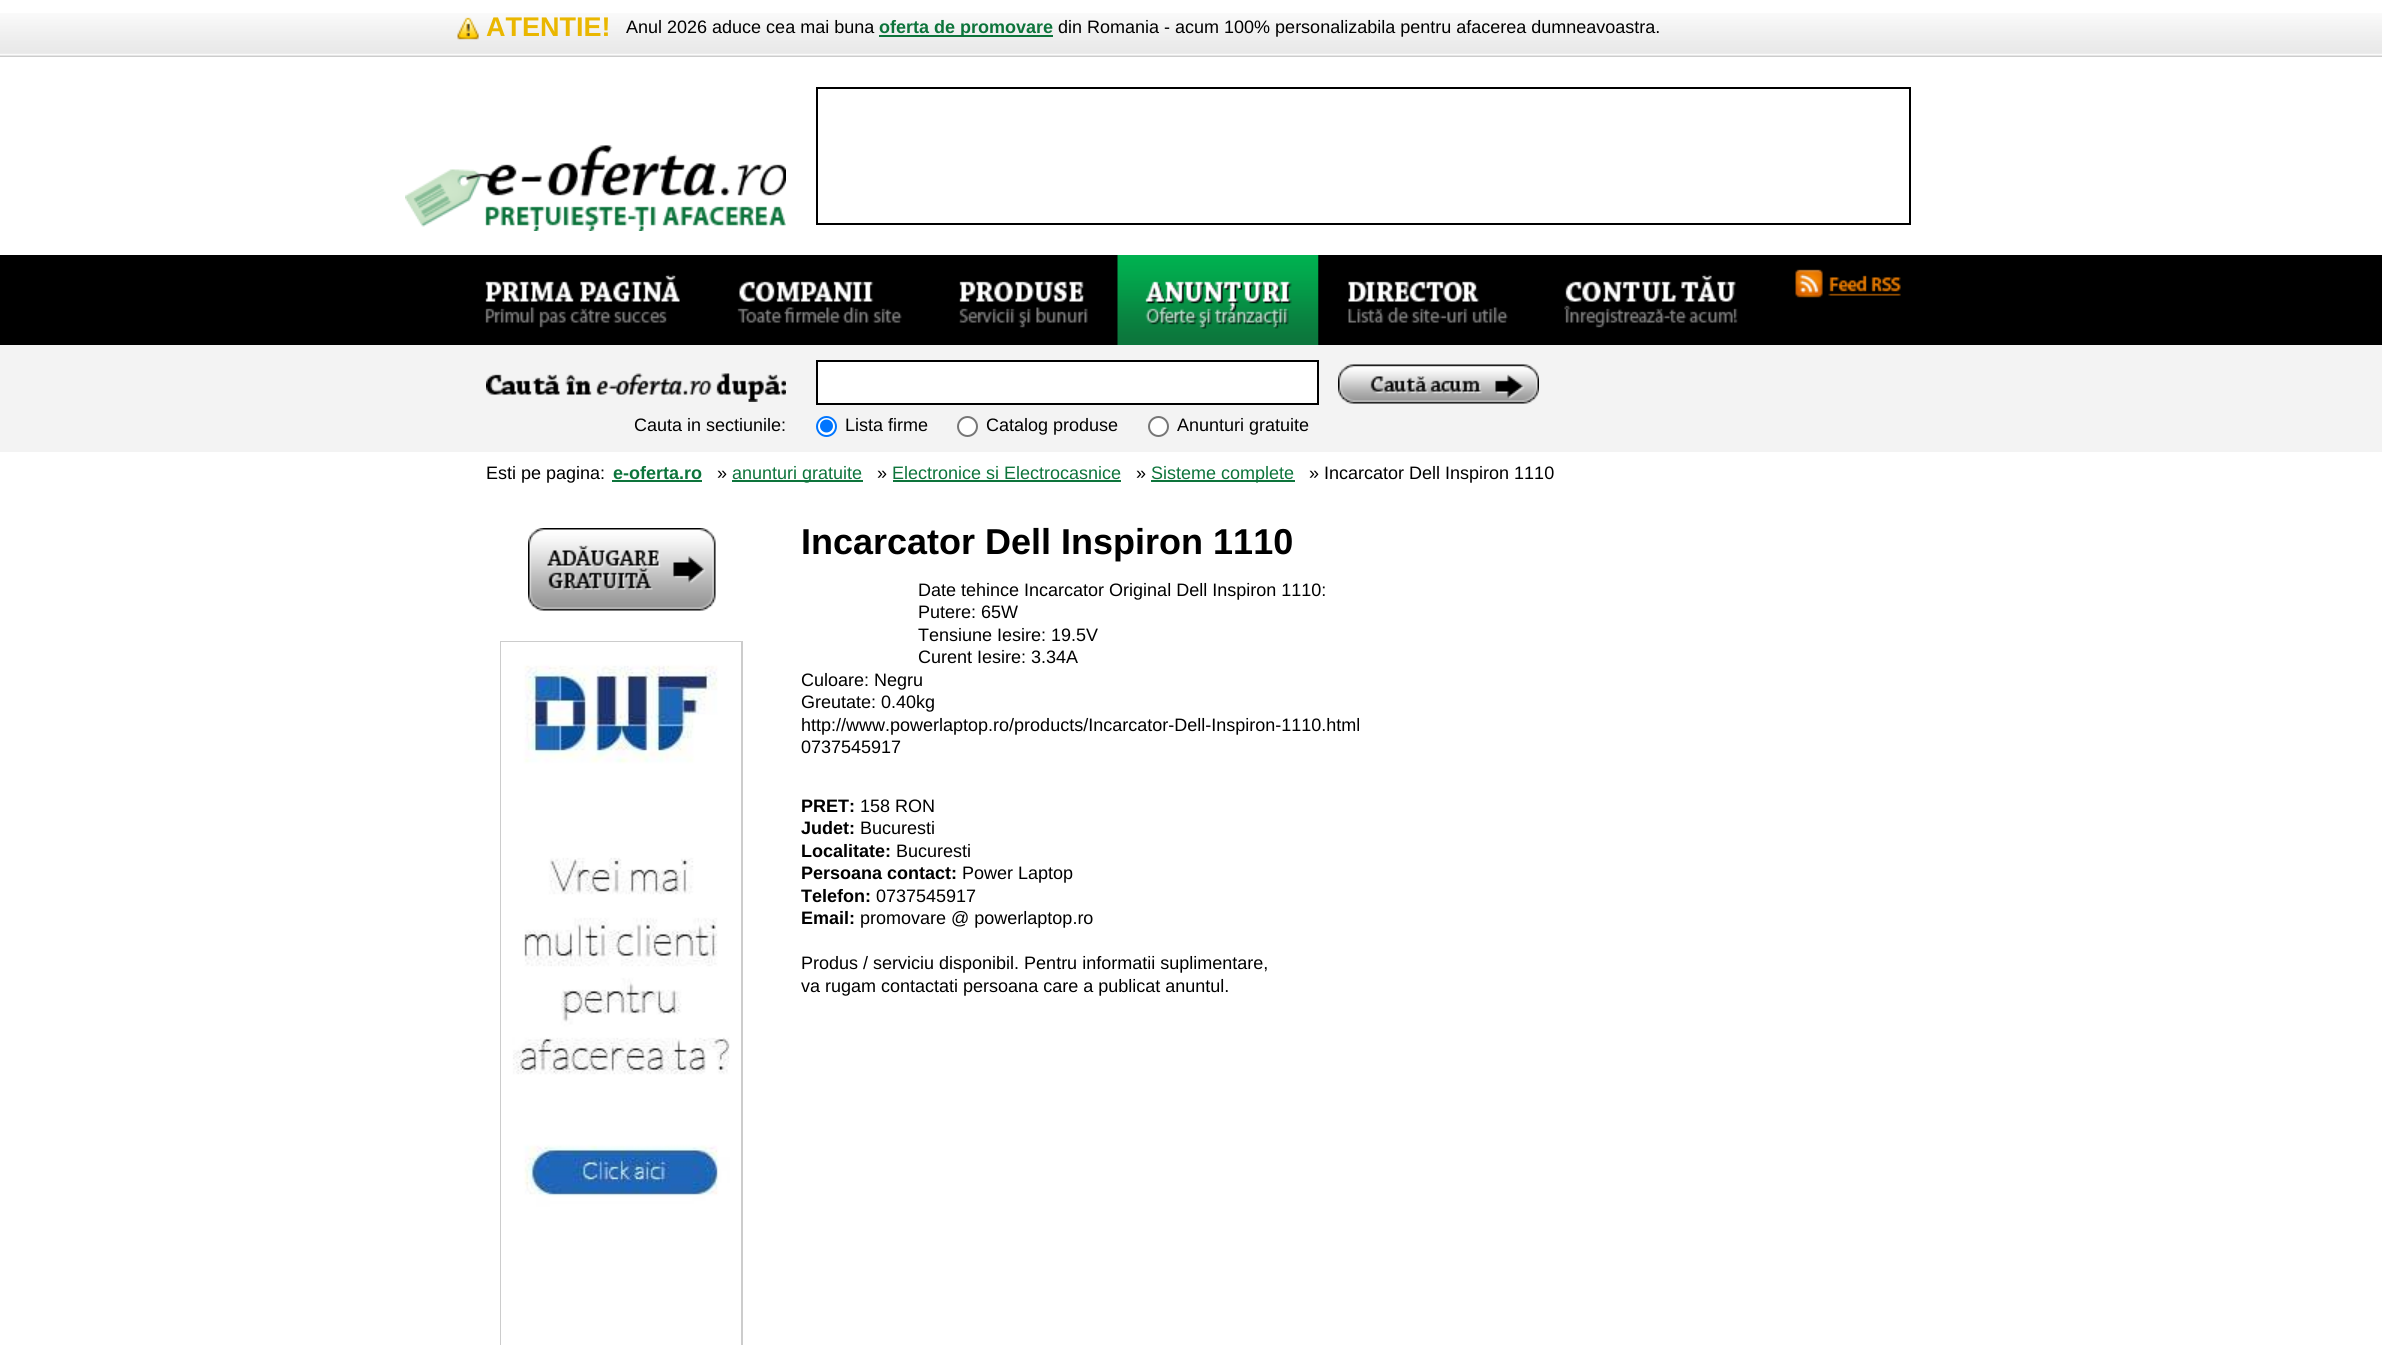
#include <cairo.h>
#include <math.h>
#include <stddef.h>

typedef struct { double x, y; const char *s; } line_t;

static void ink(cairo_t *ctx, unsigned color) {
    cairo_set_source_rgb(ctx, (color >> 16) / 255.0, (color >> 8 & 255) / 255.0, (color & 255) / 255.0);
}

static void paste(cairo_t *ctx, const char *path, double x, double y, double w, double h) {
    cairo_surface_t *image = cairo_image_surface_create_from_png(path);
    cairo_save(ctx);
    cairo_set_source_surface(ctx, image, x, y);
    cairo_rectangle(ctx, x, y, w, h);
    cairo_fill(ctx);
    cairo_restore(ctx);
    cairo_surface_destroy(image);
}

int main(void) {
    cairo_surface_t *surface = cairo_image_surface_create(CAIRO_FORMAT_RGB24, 2382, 1345);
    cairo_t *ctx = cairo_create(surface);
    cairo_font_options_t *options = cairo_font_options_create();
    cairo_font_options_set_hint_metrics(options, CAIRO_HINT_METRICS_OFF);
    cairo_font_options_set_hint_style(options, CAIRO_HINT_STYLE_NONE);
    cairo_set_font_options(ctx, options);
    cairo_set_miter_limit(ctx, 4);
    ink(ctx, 0xFFFFFF);
    cairo_paint(ctx);
    paste(ctx, "media/1.png", 0, 13, 2382, 44);
    paste(ctx, "media/2.png", 457, 17, 22, 23);
    cairo_select_font_face(ctx, "Liberation Sans", CAIRO_FONT_SLANT_NORMAL, CAIRO_FONT_WEIGHT_BOLD);
    cairo_set_font_size(ctx, 27);
    ink(ctx, 0xEAB700);
    cairo_move_to(ctx, 486, 36);
    cairo_show_text(ctx, "ATENTIE!");
    cairo_select_font_face(ctx, "Liberation Sans", CAIRO_FONT_SLANT_NORMAL, CAIRO_FONT_WEIGHT_NORMAL);
    cairo_set_font_size(ctx, 18);
    ink(ctx, 0x000000);
    cairo_move_to(ctx, 626, 33);
    cairo_show_text(ctx, "Anul 2026 aduce cea mai buna");
    ink(ctx, 0x0D743B);
    cairo_rectangle(ctx, 879, 35, 174, 2);
    cairo_fill(ctx);
    cairo_select_font_face(ctx, "Liberation Sans", CAIRO_FONT_SLANT_NORMAL, CAIRO_FONT_WEIGHT_BOLD);
    cairo_move_to(ctx, 879, 33);
    cairo_show_text(ctx, "oferta de promovare");
    cairo_select_font_face(ctx, "Liberation Sans", CAIRO_FONT_SLANT_NORMAL, CAIRO_FONT_WEIGHT_NORMAL);
    ink(ctx, 0x000000);
    cairo_move_to(ctx, 1058, 33);
    cairo_show_text(ctx, "din Romania - acum 100% personalizabila pentru afacerea dumneavoastra.");
    paste(ctx, "media/3.png", 405, 145, 381, 86);
    cairo_rectangle(ctx, 817, 88, 1093, 136);
    cairo_stroke(ctx);
    cairo_rectangle(ctx, 0, 255, 2382, 90);
    cairo_fill(ctx);
    paste(ctx, "media/4.png", 485, 274, 195, 54);
    paste(ctx, "media/5.png", 737, 281, 165, 42);
    paste(ctx, "media/6.png", 959, 281, 129, 47);
    paste(ctx, "media/7.png", 1117, 255, 202, 90);
    paste(ctx, "media/8.png", 1318, 255, 190, 90);
    paste(ctx, "media/9.png", 1564, 274, 174, 54);
    paste(ctx, "media/10.png", 1795, 269, 106, 29);
    ink(ctx, 0xF3F3F3);
    cairo_rectangle(ctx, 0, 345, 2382, 107);
    cairo_fill(ctx);
    paste(ctx, "media/11.png", 486, 373, 300, 29);
    ink(ctx, 0xFFFFFF);
    cairo_rectangle(ctx, 817, 361, 501, 43);
    cairo_fill_preserve(ctx);
    ink(ctx, 0x000000);
    cairo_stroke(ctx);
    paste(ctx, "media/12.png", 1338, 364, 201, 40);
    cairo_move_to(ctx, 634, 431);
    cairo_show_text(ctx, "Cauta in sectiunile:");
    ink(ctx, 0xFFFFFF);
    cairo_new_path(ctx);
    cairo_arc(ctx, 826.5, 426.5, 9.5, 0, 2 * M_PI);
    cairo_fill_preserve(ctx);
    ink(ctx, 0x0075FF);
    cairo_stroke(ctx);
    cairo_arc(ctx, 826.5, 426, 6.5, 0, 2 * M_PI);
    cairo_fill(ctx);
    ink(ctx, 0x000000);
    cairo_move_to(ctx, 845, 431);
    cairo_show_text(ctx, "Lista firme");
    ink(ctx, 0xFFFFFF);
    cairo_new_path(ctx);
    cairo_arc(ctx, 967.5, 426.5, 9.5, 0, 2 * M_PI);
    cairo_fill_preserve(ctx);
    ink(ctx, 0x767676);
    cairo_stroke(ctx);
    ink(ctx, 0x000000);
    cairo_move_to(ctx, 986, 431);
    cairo_show_text(ctx, "Catalog produse");
    ink(ctx, 0xFFFFFF);
    cairo_new_path(ctx);
    cairo_arc(ctx, 1158.5, 426.5, 9.5, 0, 2 * M_PI);
    cairo_fill_preserve(ctx);
    ink(ctx, 0x767676);
    cairo_stroke(ctx);
    ink(ctx, 0x000000);
    cairo_move_to(ctx, 1177, 431);
    cairo_show_text(ctx, "Anunturi gratuite");
    cairo_move_to(ctx, 486, 479);
    cairo_show_text(ctx, "Esti pe pagina:");
    cairo_select_font_face(ctx, "Liberation Sans", CAIRO_FONT_SLANT_NORMAL, CAIRO_FONT_WEIGHT_BOLD);
    ink(ctx, 0x0D743B);
    cairo_move_to(ctx, 613, 479);
    cairo_show_text(ctx, "e-oferta.ro");
    cairo_rectangle(ctx, 612, 480, 90, 2);
    cairo_fill(ctx);
    cairo_select_font_face(ctx, "Liberation Sans", CAIRO_FONT_SLANT_NORMAL, CAIRO_FONT_WEIGHT_NORMAL);
    ink(ctx, 0x000000);
    cairo_move_to(ctx, 717, 479);
    cairo_show_text(ctx, "»");
    ink(ctx, 0x0D743B);
    cairo_rectangle(ctx, 732, 480, 131, 2);
    cairo_fill(ctx);
    cairo_move_to(ctx, 732, 479);
    cairo_show_text(ctx, "anunturi gratuite");
    ink(ctx, 0x000000);
    cairo_move_to(ctx, 877, 479);
    cairo_show_text(ctx, "»");
    ink(ctx, 0x0D743B);
    cairo_move_to(ctx, 892, 479);
    cairo_show_text(ctx, "Electronice si Electrocasnice");
    cairo_rectangle(ctx, 893, 480, 228, 2);
    cairo_fill(ctx);
    ink(ctx, 0x000000);
    cairo_move_to(ctx, 1136, 479);
    cairo_show_text(ctx, "»");
    ink(ctx, 0x0D743B);
    cairo_rectangle(ctx, 1151, 480, 144, 2);
    cairo_fill(ctx);
    cairo_move_to(ctx, 1151, 479);
    cairo_show_text(ctx, "Sisteme complete");
    ink(ctx, 0x000000);
    cairo_move_to(ctx, 1309, 479);
    cairo_show_text(ctx, "» Incarcator Dell Inspiron 1110");
    paste(ctx, "media/13.png", 528, 528, 188, 83);
    cairo_rectangle(ctx, 501, 642, 241, 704);
    ink(ctx, 0xCCCCCC);
    cairo_stroke(ctx);
    paste(ctx, "media/14.png", 501, 642, 240, 703);
    cairo_select_font_face(ctx, "Liberation Sans", CAIRO_FONT_SLANT_NORMAL, CAIRO_FONT_WEIGHT_BOLD);
    cairo_set_font_size(ctx, 36);
    ink(ctx, 0x000000);
    cairo_move_to(ctx, 801, 554);
    cairo_show_text(ctx, "Incarcator Dell Inspiron 1110");
    cairo_select_font_face(ctx, "Liberation Sans", CAIRO_FONT_SLANT_NORMAL, CAIRO_FONT_WEIGHT_NORMAL);
    cairo_set_font_size(ctx, 18);
    {
        static const line_t items[] = {
            {918, 596, "Date tehince Incarcator Original Dell Inspiron 1110:"},
            {918, 618, "Putere: 65W"},
            {918, 641, "Tensiune Iesire: 19.5V"},
            {918, 663, "Curent Iesire: 3.34A"},
            {801, 686, "Culoare: Negru"},
            {801, 708, "Greutate: 0.40kg"},
            {801, 731, "http://www.powerlaptop.ro/products/Incarcator-Dell-Inspiron-1110.html"},
            {801, 753, "0737545917"},
        };
        for (size_t i = 0; i < sizeof items / sizeof *items; i++) {
            cairo_move_to(ctx, items[i].x, items[i].y);
            cairo_show_text(ctx, items[i].s);
        }
    }
    cairo_select_font_face(ctx, "Liberation Sans", CAIRO_FONT_SLANT_NORMAL, CAIRO_FONT_WEIGHT_BOLD);
    cairo_move_to(ctx, 801, 812);
    cairo_show_text(ctx, "PRET:");
    cairo_select_font_face(ctx, "Liberation Sans", CAIRO_FONT_SLANT_NORMAL, CAIRO_FONT_WEIGHT_NORMAL);
    cairo_move_to(ctx, 860, 812);
    cairo_show_text(ctx, "158 RON");
    cairo_select_font_face(ctx, "Liberation Sans", CAIRO_FONT_SLANT_NORMAL, CAIRO_FONT_WEIGHT_BOLD);
    cairo_move_to(ctx, 801, 834);
    cairo_show_text(ctx, "Judet:");
    cairo_select_font_face(ctx, "Liberation Sans", CAIRO_FONT_SLANT_NORMAL, CAIRO_FONT_WEIGHT_NORMAL);
    cairo_move_to(ctx, 860, 834);
    cairo_show_text(ctx, "Bucuresti");
    cairo_select_font_face(ctx, "Liberation Sans", CAIRO_FONT_SLANT_NORMAL, CAIRO_FONT_WEIGHT_BOLD);
    cairo_move_to(ctx, 801, 857);
    cairo_show_text(ctx, "Localitate:");
    cairo_select_font_face(ctx, "Liberation Sans", CAIRO_FONT_SLANT_NORMAL, CAIRO_FONT_WEIGHT_NORMAL);
    cairo_move_to(ctx, 896, 857);
    cairo_show_text(ctx, "Bucuresti");
    cairo_select_font_face(ctx, "Liberation Sans", CAIRO_FONT_SLANT_NORMAL, CAIRO_FONT_WEIGHT_BOLD);
    cairo_move_to(ctx, 801, 879);
    cairo_show_text(ctx, "Persoana contact:");
    cairo_select_font_face(ctx, "Liberation Sans", CAIRO_FONT_SLANT_NORMAL, CAIRO_FONT_WEIGHT_NORMAL);
    cairo_move_to(ctx, 962, 879);
    cairo_show_text(ctx, "Power Laptop");
    cairo_select_font_face(ctx, "Liberation Sans", CAIRO_FONT_SLANT_NORMAL, CAIRO_FONT_WEIGHT_BOLD);
    cairo_move_to(ctx, 801, 902);
    cairo_show_text(ctx, "Telefon:");
    cairo_select_font_face(ctx, "Liberation Sans", CAIRO_FONT_SLANT_NORMAL, CAIRO_FONT_WEIGHT_NORMAL);
    cairo_move_to(ctx, 876, 902);
    cairo_show_text(ctx, "0737545917");
    cairo_select_font_face(ctx, "Liberation Sans", CAIRO_FONT_SLANT_NORMAL, CAIRO_FONT_WEIGHT_BOLD);
    cairo_move_to(ctx, 801, 924);
    cairo_show_text(ctx, "Email:");
    cairo_select_font_face(ctx, "Liberation Sans", CAIRO_FONT_SLANT_NORMAL, CAIRO_FONT_WEIGHT_NORMAL);
    {
        static const line_t items[] = {
            {860, 924, "promovare @ powerlaptop.ro"},
            {801, 969, "Produs / serviciu disponibil. Pentru informatii suplimentare,"},
            {801, 992, "va rugam contactati persoana care a publicat anuntul."},
        };
        for (size_t i = 0; i < sizeof items / sizeof *items; i++) {
            cairo_move_to(ctx, items[i].x, items[i].y);
            cairo_show_text(ctx, items[i].s);
        }
    }
    cairo_surface_write_to_png(surface, "image.png");
    cairo_font_options_destroy(options);
    cairo_destroy(ctx);
    cairo_surface_destroy(surface);
    return 0;
}
